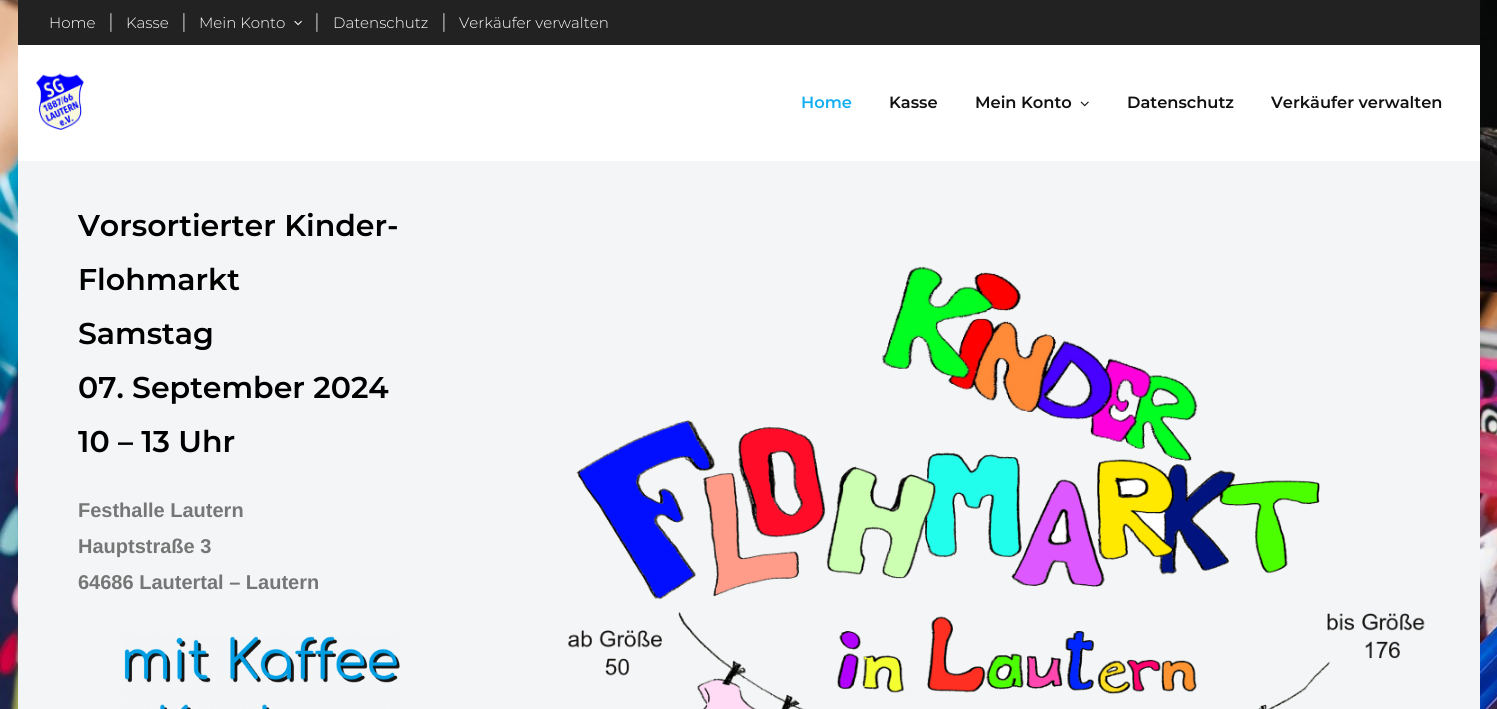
#include <cairo.h>
#include <math.h>
#include <stddef.h>

typedef struct { double x, y; const char *s; } line_t;

static void ink(cairo_t *ctx, unsigned color) {
    cairo_set_source_rgb(ctx, (color >> 16) / 255.0, (color >> 8 & 255) / 255.0, (color & 255) / 255.0);
}

static void paste(cairo_t *ctx, const char *path, double x, double y, double w, double h) {
    cairo_surface_t *image = cairo_image_surface_create_from_png(path);
    cairo_save(ctx);
    cairo_set_source_surface(ctx, image, x, y);
    cairo_rectangle(ctx, x, y, w, h);
    cairo_fill(ctx);
    cairo_restore(ctx);
    cairo_surface_destroy(image);
}

int main(void) {
    cairo_surface_t *surface = cairo_image_surface_create(CAIRO_FORMAT_RGB24, 1497, 709);
    cairo_t *ctx = cairo_create(surface);
    cairo_font_options_t *options = cairo_font_options_create();
    cairo_font_options_set_hint_metrics(options, CAIRO_HINT_METRICS_OFF);
    cairo_font_options_set_hint_style(options, CAIRO_HINT_STYLE_NONE);
    cairo_set_font_options(ctx, options);
    cairo_set_miter_limit(ctx, 4);
    ink(ctx, 0xFFFFFF);
    cairo_paint(ctx);
    paste(ctx, "media/1.png", 0, 0, 1497, 709);
    ink(ctx, 0xF3F5F6);
    cairo_rectangle(ctx, 18, 161, 1462, 548);
    cairo_fill(ctx);
    ink(ctx, 0x222222);
    cairo_rectangle(ctx, 18, 0, 1462, 45);
    cairo_fill(ctx);
    cairo_select_font_face(ctx, "Montserrat Light", CAIRO_FONT_SLANT_NORMAL, CAIRO_FONT_WEIGHT_NORMAL);
    cairo_set_font_size(ctx, 15);
    ink(ctx, 0xFFFFFF);
    cairo_move_to(ctx, 49, 28);
    cairo_show_text(ctx, "Home");
    cairo_set_font_size(ctx, 20);
    ink(ctx, 0xE5E5E5);
    cairo_move_to(ctx, 108, 28);
    cairo_show_text(ctx, "|");
    cairo_set_font_size(ctx, 15);
    ink(ctx, 0xFFFFFF);
    cairo_move_to(ctx, 126, 28);
    cairo_show_text(ctx, "Kasse");
    cairo_set_font_size(ctx, 20);
    ink(ctx, 0xE5E5E5);
    cairo_move_to(ctx, 181, 28);
    cairo_show_text(ctx, "|");
    cairo_set_font_size(ctx, 15);
    ink(ctx, 0xFFFFFF);
    cairo_move_to(ctx, 199, 28);
    cairo_show_text(ctx, "Mein Konto");
    paste(ctx, "media/2.png", 294, 20, 8, 6);
    cairo_set_font_size(ctx, 20);
    ink(ctx, 0xE5E5E5);
    cairo_move_to(ctx, 314, 28);
    cairo_show_text(ctx, "|");
    cairo_set_font_size(ctx, 15);
    ink(ctx, 0xFFFFFF);
    cairo_move_to(ctx, 333, 28);
    cairo_show_text(ctx, "Datenschutz");
    cairo_set_font_size(ctx, 20);
    ink(ctx, 0xE5E5E5);
    cairo_move_to(ctx, 441, 28);
    cairo_show_text(ctx, "|");
    cairo_set_font_size(ctx, 15);
    ink(ctx, 0xFFFFFF);
    cairo_move_to(ctx, 459, 28);
    cairo_show_text(ctx, "Verkäufer verwalten");
    cairo_rectangle(ctx, 18, 45, 1462, 116);
    cairo_fill(ctx);
    paste(ctx, "media/3.png", 36, 73, 48, 57);
    cairo_select_font_face(ctx, "Montserrat SemiBold", CAIRO_FONT_SLANT_NORMAL, CAIRO_FONT_WEIGHT_NORMAL);
    cairo_set_font_size(ctx, 16.25);
    ink(ctx, 0x13AFF0);
    cairo_move_to(ctx, 801, 108);
    cairo_show_text(ctx, "Home");
    ink(ctx, 0x111111);
    cairo_move_to(ctx, 889, 108);
    cairo_show_text(ctx, "Kasse");
    cairo_move_to(ctx, 975, 108);
    cairo_show_text(ctx, "Mein Konto");
    paste(ctx, "media/4.png", 1080, 101, 9, 6);
    cairo_move_to(ctx, 1127, 108);
    cairo_show_text(ctx, "Datenschutz");
    cairo_move_to(ctx, 1271, 108);
    cairo_show_text(ctx, "Verkäufer verwalten");
    cairo_set_font_size(ctx, 30);
    ink(ctx, 0x000000);
    {
        static const line_t items[] = {
            {78, 236, "Vorsortierter Kinder-"},
            {78, 290, "Flohmarkt"},
            {78, 344, "Samstag"},
            {78, 398, "07. September 2024"},
            {78, 452, "10 – 13 Uhr"},
        };
        for (size_t i = 0; i < sizeof items / sizeof *items; i++) {
            cairo_move_to(ctx, items[i].x, items[i].y);
            cairo_show_text(ctx, items[i].s);
        }
    }
    cairo_select_font_face(ctx, "Liberation Sans", CAIRO_FONT_SLANT_NORMAL, CAIRO_FONT_WEIGHT_BOLD);
    cairo_set_font_size(ctx, 20);
    ink(ctx, 0x767676);
    {
        static const line_t items[] = {
            {78, 517, "Festhalle Lautern"},
            {78, 553, "Hauptstraße 3"},
            {78, 589, "64686 Lautertal – Lautern"},
        };
        for (size_t i = 0; i < sizeof items / sizeof *items; i++) {
            cairo_move_to(ctx, items[i].x, items[i].y);
            cairo_show_text(ctx, items[i].s);
        }
    }
    paste(ctx, "media/5.png", 124, 636, 276, 73);
    paste(ctx, "media/6.png", 568, 266, 857, 443);
    cairo_surface_write_to_png(surface, "image.png");
    cairo_font_options_destroy(options);
    cairo_destroy(ctx);
    cairo_surface_destroy(surface);
    return 0;
}
